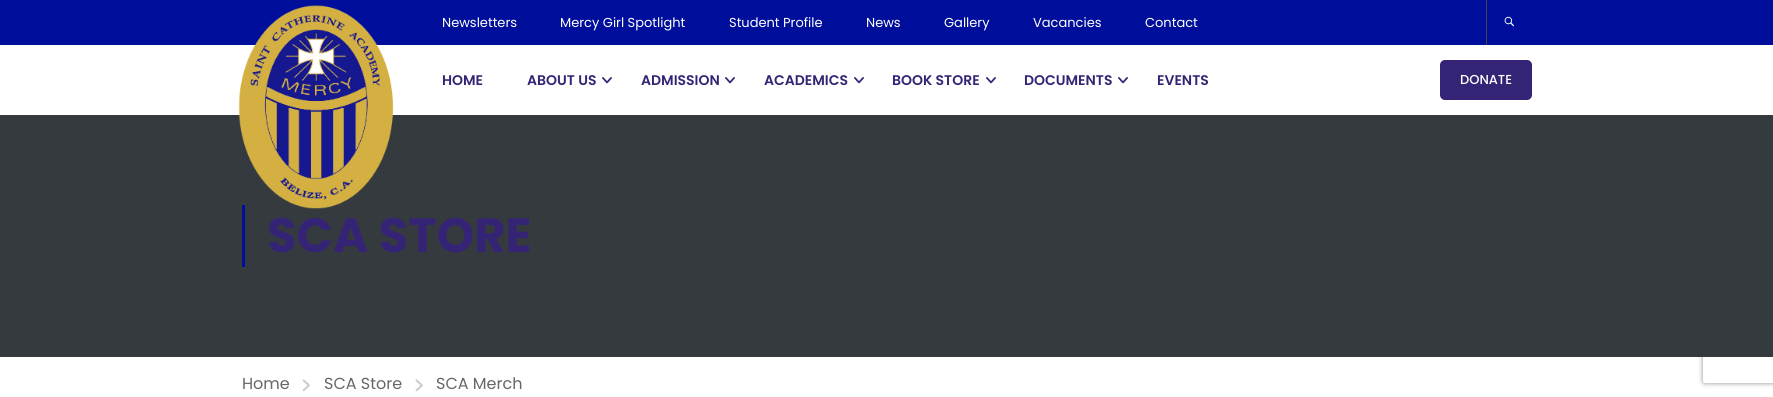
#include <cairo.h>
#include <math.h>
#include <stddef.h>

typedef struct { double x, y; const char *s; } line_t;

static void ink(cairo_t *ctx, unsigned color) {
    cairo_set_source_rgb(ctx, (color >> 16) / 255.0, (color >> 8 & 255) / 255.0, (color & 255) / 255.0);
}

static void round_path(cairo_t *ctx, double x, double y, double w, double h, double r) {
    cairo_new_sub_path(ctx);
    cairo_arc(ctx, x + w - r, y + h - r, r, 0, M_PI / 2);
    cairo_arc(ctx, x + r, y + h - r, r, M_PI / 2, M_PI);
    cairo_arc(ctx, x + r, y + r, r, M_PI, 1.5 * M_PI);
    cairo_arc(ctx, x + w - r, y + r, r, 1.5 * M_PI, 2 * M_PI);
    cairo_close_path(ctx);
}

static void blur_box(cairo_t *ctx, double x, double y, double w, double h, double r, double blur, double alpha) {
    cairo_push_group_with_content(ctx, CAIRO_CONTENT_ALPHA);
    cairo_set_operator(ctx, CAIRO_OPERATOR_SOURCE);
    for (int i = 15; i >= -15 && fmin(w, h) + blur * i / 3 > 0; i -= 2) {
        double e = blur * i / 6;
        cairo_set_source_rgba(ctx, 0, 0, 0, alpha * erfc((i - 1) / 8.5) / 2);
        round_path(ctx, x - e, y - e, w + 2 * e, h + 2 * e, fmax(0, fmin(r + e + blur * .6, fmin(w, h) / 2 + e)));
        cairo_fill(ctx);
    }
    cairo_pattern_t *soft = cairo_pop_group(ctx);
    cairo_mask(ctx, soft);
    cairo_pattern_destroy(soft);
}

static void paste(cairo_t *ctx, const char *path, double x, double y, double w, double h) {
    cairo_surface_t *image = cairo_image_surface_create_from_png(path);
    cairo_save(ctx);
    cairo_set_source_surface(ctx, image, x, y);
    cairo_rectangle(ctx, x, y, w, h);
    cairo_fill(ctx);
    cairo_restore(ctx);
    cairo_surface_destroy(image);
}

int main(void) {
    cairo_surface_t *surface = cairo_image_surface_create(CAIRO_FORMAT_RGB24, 1773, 397);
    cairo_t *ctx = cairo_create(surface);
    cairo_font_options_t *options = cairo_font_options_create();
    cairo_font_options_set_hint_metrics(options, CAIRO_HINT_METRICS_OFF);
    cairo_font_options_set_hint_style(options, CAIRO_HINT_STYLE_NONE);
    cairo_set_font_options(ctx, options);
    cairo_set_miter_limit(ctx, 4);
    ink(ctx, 0xFFFFFF);
    cairo_paint(ctx);
    ink(ctx, 0x000F9B);
    cairo_rectangle(ctx, 0, 0, 1773, 45);
    cairo_fill(ctx);
    cairo_select_font_face(ctx, "Poppins", CAIRO_FONT_SLANT_NORMAL, CAIRO_FONT_WEIGHT_NORMAL);
    cairo_set_font_size(ctx, 13);
    ink(ctx, 0xFFFFFF);
    {
        static const line_t items[] = {
            {442, 27, "Newsletters"},
            {560, 27, "Mercy Girl Spotlight"},
            {729, 27, "Student Profile"},
            {866, 27, "News"},
            {944, 27, "Gallery"},
            {1033, 27, "Vacancies"},
            {1145, 27, "Contact"},
        };
        for (size_t i = 0; i < sizeof items / sizeof *items; i++) {
            cairo_move_to(ctx, items[i].x, items[i].y);
            cairo_show_text(ctx, items[i].s);
        }
    }
    ink(ctx, 0x444444);
    cairo_rectangle(ctx, 1486, 0, 1, 45);
    cairo_fill(ctx);
    paste(ctx, "media/1.png", 1504, 16, 10, 11);
    cairo_save(ctx);
    cairo_set_fill_rule(ctx, CAIRO_FILL_RULE_EVEN_ODD);
    cairo_new_path(ctx);
    cairo_move_to(ctx, 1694, 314);
    cairo_line_to(ctx, 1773, 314);
    cairo_line_to(ctx, 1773, 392);
    cairo_line_to(ctx, 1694, 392);
    cairo_close_path(ctx);
    cairo_move_to(ctx, 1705, 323);
    cairo_line_to(ctx, 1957, 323);
    cairo_curve_to(ctx, 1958, 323, 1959, 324, 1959, 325);
    cairo_line_to(ctx, 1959, 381);
    cairo_curve_to(ctx, 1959, 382, 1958, 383, 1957, 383);
    cairo_line_to(ctx, 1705, 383);
    cairo_curve_to(ctx, 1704, 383, 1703, 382, 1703, 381);
    cairo_line_to(ctx, 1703, 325);
    cairo_curve_to(ctx, 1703, 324, 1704, 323, 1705, 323);
    cairo_close_path(ctx);
    cairo_clip(ctx);
    ink(ctx, 0x8B8B8B);
    blur_box(ctx, 1703, 323, 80, 60, 2, 2.5, 1);
    cairo_restore(ctx);
    ink(ctx, 0x353A3F);
    cairo_rectangle(ctx, 0, 115, 1773, 242);
    cairo_fill(ctx);
    ink(ctx, 0x000F9B);
    cairo_rectangle(ctx, 242, 205, 3, 62);
    cairo_fill(ctx);
    paste(ctx, "media/2.png", 238, 5, 156, 204);
    cairo_select_font_face(ctx, "Poppins SemiBold", CAIRO_FONT_SLANT_NORMAL, CAIRO_FONT_WEIGHT_NORMAL);
    cairo_set_font_size(ctx, 14);
    ink(ctx, 0x352475);
    cairo_move_to(ctx, 442, 85);
    cairo_show_text(ctx, "HOME");
    cairo_move_to(ctx, 527, 85);
    cairo_show_text(ctx, "ABOUT US");
    paste(ctx, "media/3.png", 602, 77, 10, 7);
    cairo_move_to(ctx, 641, 85);
    cairo_show_text(ctx, "ADMISSION");
    paste(ctx, "media/3.png", 725, 77, 10, 7);
    cairo_move_to(ctx, 764, 85);
    cairo_show_text(ctx, "ACADEMICS");
    paste(ctx, "media/3.png", 854, 77, 10, 7);
    cairo_move_to(ctx, 892, 85);
    cairo_show_text(ctx, "BOOK STORE");
    paste(ctx, "media/3.png", 986, 77, 10, 7);
    cairo_move_to(ctx, 1024, 85);
    cairo_show_text(ctx, "DOCUMENTS");
    paste(ctx, "media/3.png", 1118, 77, 10, 7);
    cairo_move_to(ctx, 1157, 85);
    cairo_show_text(ctx, "EVENTS");
    round_path(ctx, 1440, 60, 92, 40, 5);
    cairo_fill(ctx);
    cairo_select_font_face(ctx, "Poppins Medium", CAIRO_FONT_SLANT_NORMAL, CAIRO_FONT_WEIGHT_NORMAL);
    cairo_set_font_size(ctx, 13);
    ink(ctx, 0xFFFFFF);
    cairo_move_to(ctx, 1460, 84);
    cairo_show_text(ctx, "DONATE");
    cairo_select_font_face(ctx, "Poppins", CAIRO_FONT_SLANT_NORMAL, CAIRO_FONT_WEIGHT_BOLD);
    cairo_set_font_size(ctx, 48);
    ink(ctx, 0x352475);
    cairo_move_to(ctx, 267, 252);
    cairo_show_text(ctx, "SCA STORE");
    cairo_select_font_face(ctx, "Poppins", CAIRO_FONT_SLANT_NORMAL, CAIRO_FONT_WEIGHT_NORMAL);
    cairo_set_font_size(ctx, 16);
    ink(ctx, 0x666666);
    cairo_move_to(ctx, 242, 389);
    cairo_show_text(ctx, "Home");
    paste(ctx, "media/4.png", 302, 379, 8, 13);
    cairo_move_to(ctx, 324, 389);
    cairo_show_text(ctx, "SCA Store");
    paste(ctx, "media/4.png", 415, 379, 8, 13);
    cairo_move_to(ctx, 436, 389);
    cairo_show_text(ctx, "SCA Merch");
    cairo_surface_write_to_png(surface, "image.png");
    cairo_font_options_destroy(options);
    cairo_destroy(ctx);
    cairo_surface_destroy(surface);
    return 0;
}
